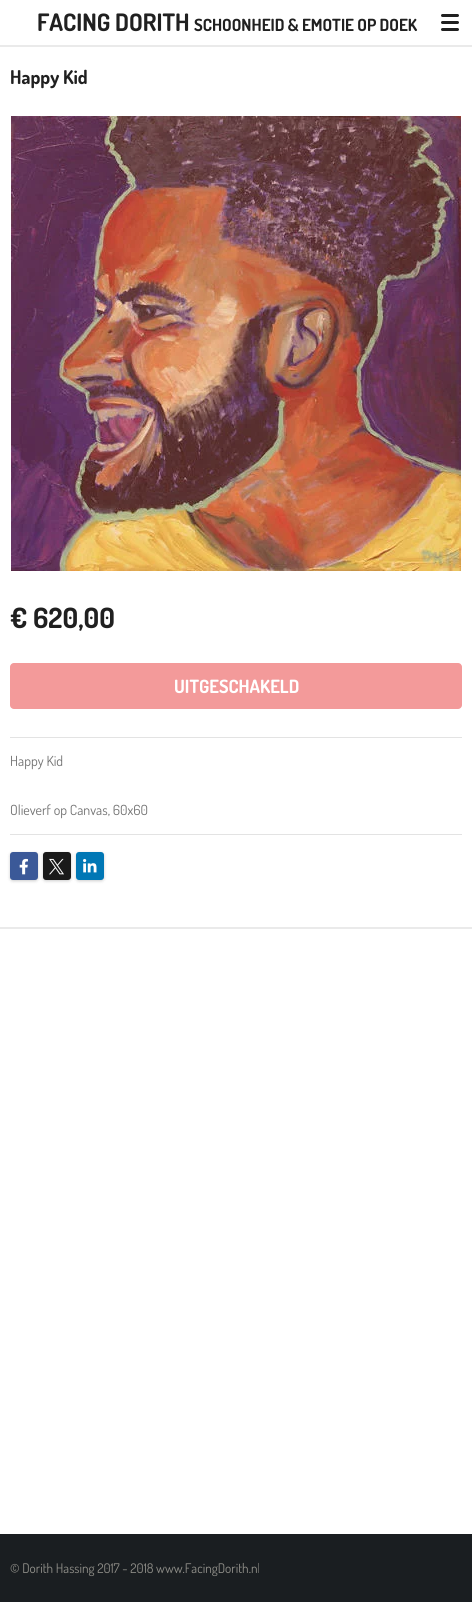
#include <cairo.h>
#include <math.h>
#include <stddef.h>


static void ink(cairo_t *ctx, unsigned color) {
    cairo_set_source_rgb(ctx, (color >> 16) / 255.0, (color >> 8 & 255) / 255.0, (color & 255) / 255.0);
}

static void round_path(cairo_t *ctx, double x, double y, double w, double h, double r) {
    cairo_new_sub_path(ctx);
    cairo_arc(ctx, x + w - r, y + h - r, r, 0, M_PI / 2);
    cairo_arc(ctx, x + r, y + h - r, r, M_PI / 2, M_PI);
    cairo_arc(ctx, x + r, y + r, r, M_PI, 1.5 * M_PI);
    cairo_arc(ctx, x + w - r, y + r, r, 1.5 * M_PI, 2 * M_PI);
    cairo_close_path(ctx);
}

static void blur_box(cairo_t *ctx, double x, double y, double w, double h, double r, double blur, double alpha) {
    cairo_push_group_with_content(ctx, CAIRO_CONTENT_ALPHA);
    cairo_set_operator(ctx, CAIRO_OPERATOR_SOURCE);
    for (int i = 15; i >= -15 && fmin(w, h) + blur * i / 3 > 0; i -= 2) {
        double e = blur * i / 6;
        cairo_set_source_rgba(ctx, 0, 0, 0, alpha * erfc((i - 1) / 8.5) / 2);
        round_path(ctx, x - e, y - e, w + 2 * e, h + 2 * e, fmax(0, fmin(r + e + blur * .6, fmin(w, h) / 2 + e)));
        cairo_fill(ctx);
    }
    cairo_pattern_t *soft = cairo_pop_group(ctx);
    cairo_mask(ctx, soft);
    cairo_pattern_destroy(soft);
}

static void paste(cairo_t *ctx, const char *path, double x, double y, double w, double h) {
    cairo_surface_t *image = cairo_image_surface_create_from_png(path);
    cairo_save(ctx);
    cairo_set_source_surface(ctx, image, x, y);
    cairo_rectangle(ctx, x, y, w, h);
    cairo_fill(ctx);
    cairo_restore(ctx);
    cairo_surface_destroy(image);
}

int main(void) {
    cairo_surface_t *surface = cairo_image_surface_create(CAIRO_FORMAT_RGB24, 472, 1602);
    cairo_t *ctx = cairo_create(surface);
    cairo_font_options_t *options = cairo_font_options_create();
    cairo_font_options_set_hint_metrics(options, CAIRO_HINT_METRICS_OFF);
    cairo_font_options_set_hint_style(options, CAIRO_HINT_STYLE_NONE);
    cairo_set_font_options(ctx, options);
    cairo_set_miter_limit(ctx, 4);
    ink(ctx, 0xFFFFFF);
    cairo_paint(ctx);
    cairo_select_font_face(ctx, "Dosis", CAIRO_FONT_SLANT_NORMAL, CAIRO_FONT_WEIGHT_BOLD);
    cairo_set_font_size(ctx, 24);
    ink(ctx, 0x202020);
    cairo_move_to(ctx, 37, 31);
    cairo_show_text(ctx, "FACING DORITH");
    cairo_set_font_size(ctx, 16.75);
    cairo_move_to(ctx, 194, 31);
    cairo_show_text(ctx, "SCHOONHEID & EMOTIE OP DOEK");
    round_path(ctx, 441, 21, 18, 3, 1.5);
    cairo_fill(ctx);
    round_path(ctx, 441, 14, 18, 3, 1.5);
    cairo_fill(ctx);
    round_path(ctx, 441, 28, 18, 3, 1.5);
    cairo_fill(ctx);
    ink(ctx, 0xEAEAEA);
    cairo_rectangle(ctx, 0, 45, 472, 2);
    cairo_fill(ctx);
    cairo_rectangle(ctx, 0, 927, 472, 2);
    cairo_fill(ctx);
    cairo_set_font_size(ctx, 19);
    ink(ctx, 0x202020);
    cairo_move_to(ctx, 10, 84);
    cairo_show_text(ctx, "Happy Kid");
    paste(ctx, "media/1.png", 11, 116, 450, 455);
    cairo_set_font_size(ctx, 28);
    cairo_move_to(ctx, 10, 628);
    cairo_show_text(ctx, "€ 620,00");
    ink(ctx, 0xF39A9A);
    round_path(ctx, 10, 663, 452, 46, 4);
    cairo_fill(ctx);
    cairo_set_font_size(ctx, 18.25);
    ink(ctx, 0xFFFFFF);
    cairo_move_to(ctx, 174, 693);
    cairo_show_text(ctx, "UITGESCHAKELD");
    ink(ctx, 0xE3E3E3);
    cairo_rectangle(ctx, 10, 737, 452, 1);
    cairo_fill(ctx);
    cairo_select_font_face(ctx, "Dosis", CAIRO_FONT_SLANT_NORMAL, CAIRO_FONT_WEIGHT_NORMAL);
    cairo_set_font_size(ctx, 14);
    ink(ctx, 0x737373);
    cairo_move_to(ctx, 10, 766);
    cairo_show_text(ctx, "Happy Kid");
    cairo_move_to(ctx, 10, 815);
    cairo_show_text(ctx, "Olieverf op Canvas, 60x60");
    ink(ctx, 0xE3E3E3);
    cairo_rectangle(ctx, 10, 834, 452, 1);
    cairo_fill(ctx);
    ink(ctx, 0x000000);
    blur_box(ctx, 10, 853, 28, 28, 3, 1.5, 0.2);
    ink(ctx, 0x3B5998);
    round_path(ctx, 10, 852, 28, 28, 3);
    cairo_fill(ctx);
    paste(ctx, "media/2.png", 19, 858, 9, 17);
    ink(ctx, 0x000000);
    blur_box(ctx, 43, 853, 28, 28, 3, 1.5, 0.2);
    ink(ctx, 0x1A1A1A);
    round_path(ctx, 43, 852, 28, 28, 3);
    cairo_fill(ctx);
    paste(ctx, "media/3.png", 49, 858, 15, 17);
    ink(ctx, 0x000000);
    blur_box(ctx, 76, 853, 28, 28, 3, 1.5, 0.2);
    ink(ctx, 0x0077B5);
    round_path(ctx, 76, 852, 28, 28, 3);
    cairo_fill(ctx);
    paste(ctx, "media/4.png", 83, 858, 14, 15);
    ink(ctx, 0x1A1E21);
    cairo_rectangle(ctx, 0, 1534, 472, 68);
    cairo_fill(ctx);
    cairo_set_font_size(ctx, 13.25);
    ink(ctx, 0x91908A);
    cairo_move_to(ctx, 10, 1573);
    cairo_show_text(ctx, "© Dorith Hassing 2017 - 2018 www.FacingDorith.nl");
    cairo_surface_write_to_png(surface, "image.png");
    cairo_font_options_destroy(options);
    cairo_destroy(ctx);
    cairo_surface_destroy(surface);
    return 0;
}
